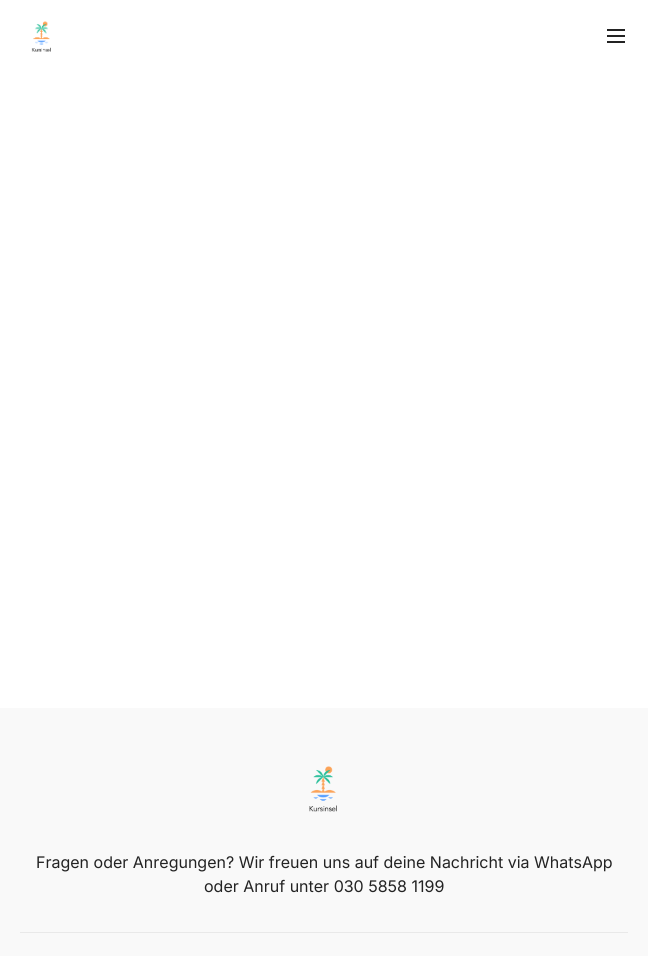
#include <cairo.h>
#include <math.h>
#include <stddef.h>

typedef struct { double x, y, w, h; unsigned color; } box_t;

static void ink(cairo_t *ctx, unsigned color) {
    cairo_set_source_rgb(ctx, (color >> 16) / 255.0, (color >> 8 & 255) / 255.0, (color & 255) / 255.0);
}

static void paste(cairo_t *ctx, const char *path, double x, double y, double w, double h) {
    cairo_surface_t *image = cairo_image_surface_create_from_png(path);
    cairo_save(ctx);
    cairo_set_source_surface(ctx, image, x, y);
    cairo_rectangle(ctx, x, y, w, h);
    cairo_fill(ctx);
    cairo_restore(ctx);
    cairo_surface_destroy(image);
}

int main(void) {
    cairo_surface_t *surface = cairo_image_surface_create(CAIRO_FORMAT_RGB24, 648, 956);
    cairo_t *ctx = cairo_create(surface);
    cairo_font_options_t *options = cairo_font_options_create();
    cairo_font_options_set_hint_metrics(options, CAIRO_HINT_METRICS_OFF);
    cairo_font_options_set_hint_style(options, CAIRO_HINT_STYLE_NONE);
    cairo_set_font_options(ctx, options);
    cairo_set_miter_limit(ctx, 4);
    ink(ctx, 0xFFFFFF);
    cairo_paint(ctx);
    paste(ctx, "media/1.png", 31, 21, 20, 31);
    {
        static const box_t items[] = {
            {607, 29, 18, 2, 0x232323},
            {607, 35, 18, 2, 0x232323},
            {607, 41, 18, 2, 0x232323},
            {0, 708, 648, 248, 0xF9F9F9},
        };
        for (size_t i = 0; i < sizeof items / sizeof *items; i++) {
            ink(ctx, items[i].color);
            cairo_rectangle(ctx, items[i].x, items[i].y, items[i].w, items[i].h);
            cairo_fill(ctx);
        }
    }
    paste(ctx, "media/2.png", 309, 766, 28, 46);
    cairo_select_font_face(ctx, "Inter", CAIRO_FONT_SLANT_NORMAL, CAIRO_FONT_WEIGHT_NORMAL);
    cairo_set_font_size(ctx, 16);
    ink(ctx, 0x232323);
    cairo_move_to(ctx, 36, 868);
    cairo_show_text(ctx, "Fragen oder Anregungen? Wir freuen uns auf deine Nachricht via WhatsApp");
    cairo_move_to(ctx, 204, 892);
    cairo_show_text(ctx, "oder Anruf unter 030 5858 1199");
    ink(ctx, 0xE9E9E9);
    cairo_rectangle(ctx, 20, 932, 608, 1);
    cairo_fill(ctx);
    cairo_surface_write_to_png(surface, "image.png");
    cairo_font_options_destroy(options);
    cairo_destroy(ctx);
    cairo_surface_destroy(surface);
    return 0;
}
